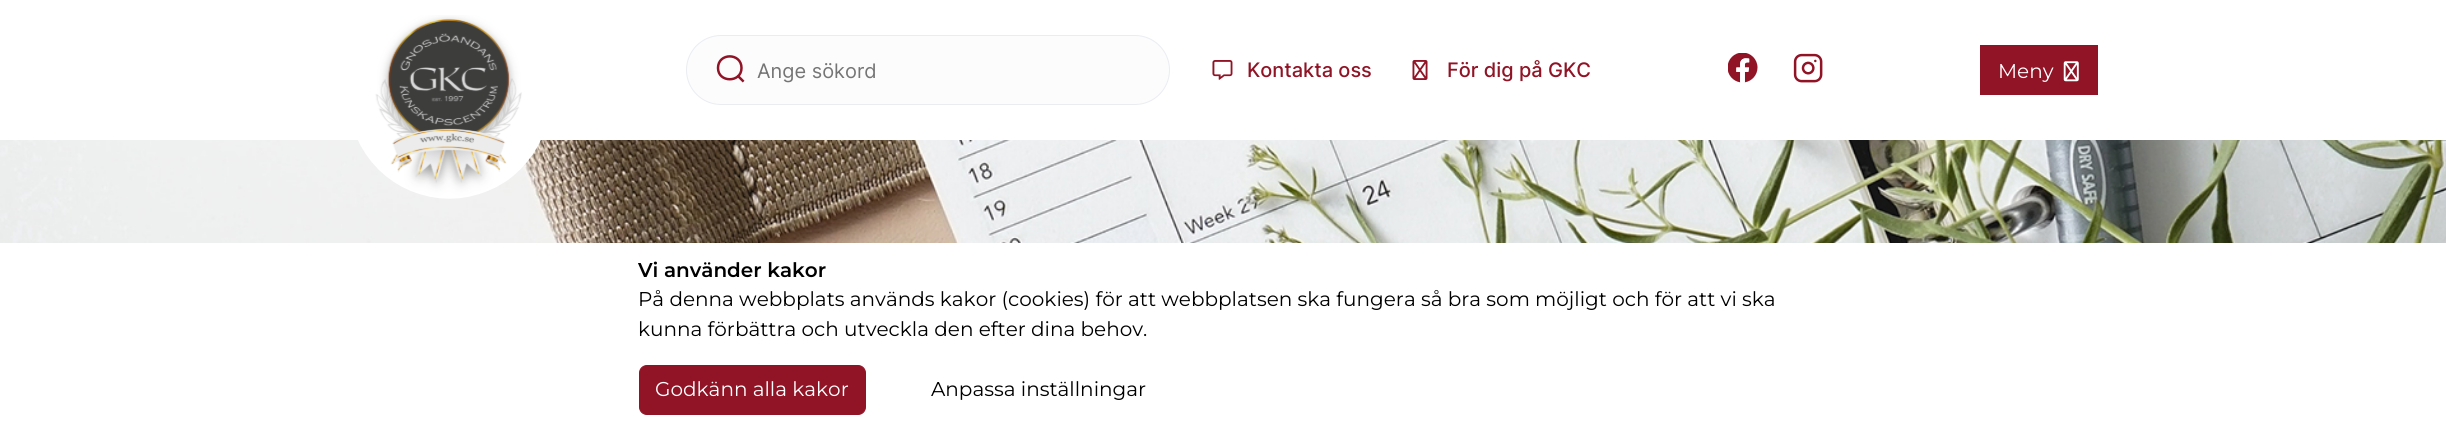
#include <cairo.h>
#include <math.h>
#include <stddef.h>


static void ink(cairo_t *ctx, unsigned color) {
    cairo_set_source_rgb(ctx, (color >> 16) / 255.0, (color >> 8 & 255) / 255.0, (color & 255) / 255.0);
}

static void round_path(cairo_t *ctx, double x, double y, double w, double h, double r) {
    cairo_new_sub_path(ctx);
    cairo_arc(ctx, x + w - r, y + h - r, r, 0, M_PI / 2);
    cairo_arc(ctx, x + r, y + h - r, r, M_PI / 2, M_PI);
    cairo_arc(ctx, x + r, y + r, r, M_PI, 1.5 * M_PI);
    cairo_arc(ctx, x + w - r, y + r, r, 1.5 * M_PI, 2 * M_PI);
    cairo_close_path(ctx);
}

static void paste(cairo_t *ctx, const char *path, double x, double y, double w, double h) {
    cairo_surface_t *image = cairo_image_surface_create_from_png(path);
    cairo_save(ctx);
    cairo_set_source_surface(ctx, image, x, y);
    cairo_rectangle(ctx, x, y, w, h);
    cairo_fill(ctx);
    cairo_restore(ctx);
    cairo_surface_destroy(image);
}

int main(void) {
    cairo_surface_t *surface = cairo_image_surface_create(CAIRO_FORMAT_RGB24, 2446, 430);
    cairo_t *ctx = cairo_create(surface);
    cairo_font_options_t *options = cairo_font_options_create();
    cairo_font_options_set_hint_metrics(options, CAIRO_HINT_METRICS_OFF);
    cairo_font_options_set_hint_style(options, CAIRO_HINT_STYLE_NONE);
    cairo_set_font_options(ctx, options);
    cairo_set_miter_limit(ctx, 4);
    ink(ctx, 0xFFFFFF);
    cairo_paint(ctx);
    paste(ctx, "media/7.png", 0, 140, 2446, 103);
    paste(ctx, "media/1.png", 358, 15, 183, 184);
    ink(ctx, 0xFCFCFD);
    round_path(ctx, 686.5, 35.5, 483, 69, 34.5);
    cairo_fill_preserve(ctx);
    ink(ctx, 0xEAECF0);
    cairo_set_line_width(ctx, 1);
    cairo_stroke(ctx);
    cairo_save(ctx);
    round_path(ctx, 716, 55, 30, 29, 8);
    cairo_clip(ctx);
    cairo_new_path(ctx);
    cairo_move_to(ctx, 744.5, 82.5);
    cairo_line_to(ctx, 738, 76);
    cairo_move_to(ctx, 741.5, 68);
    cairo_curve_to(ctx, 741.5, 83, 718, 83, 718, 68);
    cairo_curve_to(ctx, 718, 52.5, 741.5, 52.5, 741.5, 68);
    cairo_close_path(ctx);
    ink(ctx, 0x901426);
    cairo_set_line_width(ctx, 2.5);
    cairo_set_line_cap(ctx, CAIRO_LINE_CAP_ROUND);
    cairo_set_line_join(ctx, CAIRO_LINE_JOIN_ROUND);
    cairo_stroke(ctx);
    cairo_restore(ctx);
    cairo_select_font_face(ctx, "Inter", CAIRO_FONT_SLANT_NORMAL, CAIRO_FONT_WEIGHT_NORMAL);
    cairo_set_font_size(ctx, 20);
    ink(ctx, 0x757575);
    cairo_move_to(ctx, 757, 78);
    cairo_show_text(ctx, "Ange sökord");
    paste(ctx, "media/2.png", 1212, 60, 21, 20);
    cairo_select_font_face(ctx, "Inter Medium", CAIRO_FONT_SLANT_NORMAL, CAIRO_FONT_WEIGHT_NORMAL);
    ink(ctx, 0x901426);
    cairo_move_to(ctx, 1247, 77);
    cairo_show_text(ctx, "Kontakta oss");
    paste(ctx, "media/3.png", 1412, 60, 16, 20);
    cairo_move_to(ctx, 1447, 77);
    cairo_show_text(ctx, "För dig på GKC");
    paste(ctx, "media/4.png", 1728, 53, 30, 30);
    paste(ctx, "media/5.png", 1793, 53, 30, 30);
    cairo_rectangle(ctx, 1980, 45, 118, 50);
    cairo_fill(ctx);
    cairo_select_font_face(ctx, "Montserrat Thin", CAIRO_FONT_SLANT_NORMAL, CAIRO_FONT_WEIGHT_NORMAL);
    ink(ctx, 0xFFFFFF);
    cairo_move_to(ctx, 1998, 78);
    cairo_show_text(ctx, "Meny");
    paste(ctx, "media/6.png", 2063, 61, 16, 21);
    cairo_select_font_face(ctx, "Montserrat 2 Thin", CAIRO_FONT_SLANT_NORMAL, CAIRO_FONT_WEIGHT_NORMAL);
    ink(ctx, 0x000000);
    cairo_move_to(ctx, 638, 277);
    cairo_show_text(ctx, "Vi använder kakor");
    cairo_select_font_face(ctx, "Montserrat Thin", CAIRO_FONT_SLANT_NORMAL, CAIRO_FONT_WEIGHT_NORMAL);
    cairo_move_to(ctx, 638, 306);
    cairo_show_text(ctx, "På denna webbplats används kakor (cookies) för att webbplatsen ska fungera så bra som möjligt och för att vi ska");
    cairo_move_to(ctx, 638, 336);
    cairo_show_text(ctx, "kunna förbättra och utveckla den efter dina behov.");
    ink(ctx, 0x901426);
    round_path(ctx, 639.5, 365.5, 226, 49, 7.5);
    cairo_fill_preserve(ctx);
    cairo_stroke(ctx);
    ink(ctx, 0xFFFFFF);
    cairo_move_to(ctx, 655, 396);
    cairo_show_text(ctx, "Godkänn alla kakor");
    ink(ctx, 0x000000);
    cairo_move_to(ctx, 931, 396);
    cairo_show_text(ctx, "Anpassa inställningar");
    cairo_surface_write_to_png(surface, "image.png");
    cairo_font_options_destroy(options);
    cairo_destroy(ctx);
    cairo_surface_destroy(surface);
    return 0;
}
